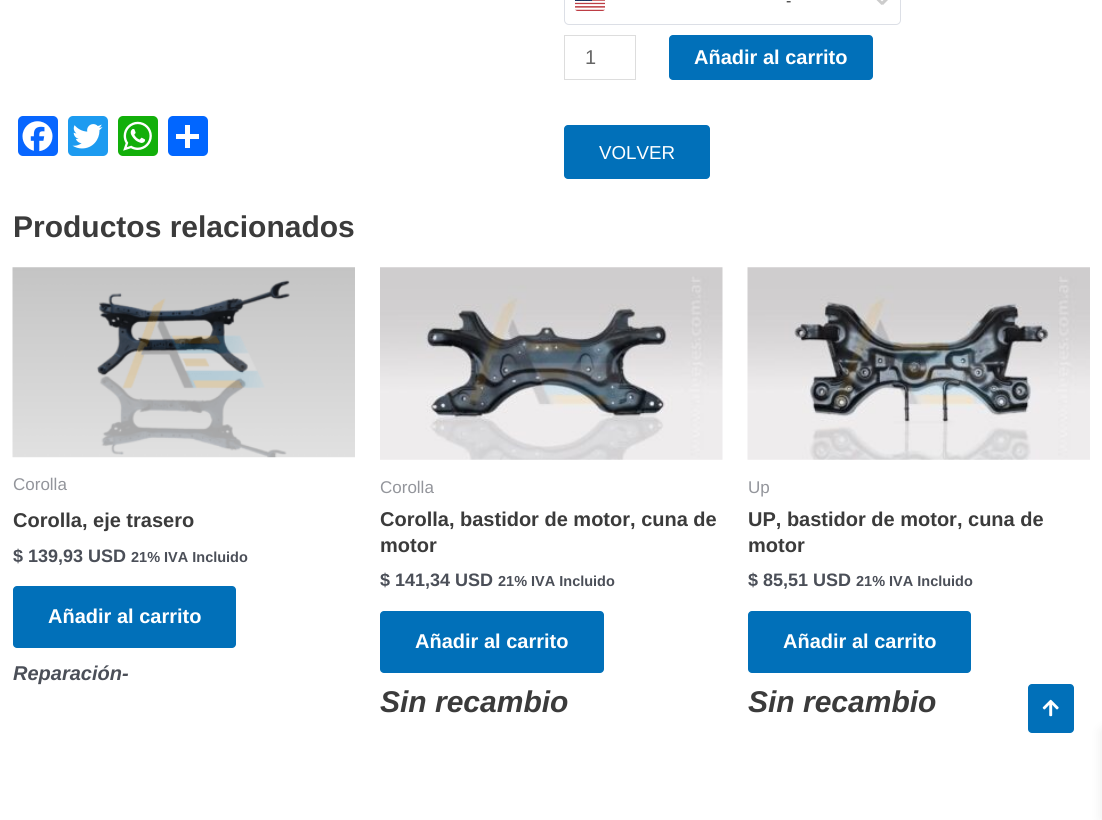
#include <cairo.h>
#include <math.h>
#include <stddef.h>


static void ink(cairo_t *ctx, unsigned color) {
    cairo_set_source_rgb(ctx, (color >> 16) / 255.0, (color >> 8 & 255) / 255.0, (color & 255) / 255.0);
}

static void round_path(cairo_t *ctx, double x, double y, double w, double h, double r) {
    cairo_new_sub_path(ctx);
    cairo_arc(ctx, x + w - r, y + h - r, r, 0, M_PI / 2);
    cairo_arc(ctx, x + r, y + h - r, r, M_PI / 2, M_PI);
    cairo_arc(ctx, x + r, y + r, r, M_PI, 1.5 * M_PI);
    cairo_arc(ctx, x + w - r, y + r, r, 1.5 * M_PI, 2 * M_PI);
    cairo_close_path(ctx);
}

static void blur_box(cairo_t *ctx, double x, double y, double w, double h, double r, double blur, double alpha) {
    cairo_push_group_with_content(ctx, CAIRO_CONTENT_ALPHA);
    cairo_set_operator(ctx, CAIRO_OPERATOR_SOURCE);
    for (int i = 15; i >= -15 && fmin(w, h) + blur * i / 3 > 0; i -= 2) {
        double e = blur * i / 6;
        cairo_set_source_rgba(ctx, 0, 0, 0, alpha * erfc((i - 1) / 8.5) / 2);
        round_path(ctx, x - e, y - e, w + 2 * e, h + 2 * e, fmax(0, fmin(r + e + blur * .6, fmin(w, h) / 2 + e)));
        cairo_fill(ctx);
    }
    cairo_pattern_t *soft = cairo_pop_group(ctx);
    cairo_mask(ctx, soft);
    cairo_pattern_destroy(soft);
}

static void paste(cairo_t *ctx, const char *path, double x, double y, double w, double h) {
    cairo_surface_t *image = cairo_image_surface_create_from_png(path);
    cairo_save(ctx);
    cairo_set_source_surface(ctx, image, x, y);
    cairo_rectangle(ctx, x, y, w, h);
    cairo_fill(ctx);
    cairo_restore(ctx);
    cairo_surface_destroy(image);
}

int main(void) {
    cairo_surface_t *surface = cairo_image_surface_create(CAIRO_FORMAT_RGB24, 1102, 820);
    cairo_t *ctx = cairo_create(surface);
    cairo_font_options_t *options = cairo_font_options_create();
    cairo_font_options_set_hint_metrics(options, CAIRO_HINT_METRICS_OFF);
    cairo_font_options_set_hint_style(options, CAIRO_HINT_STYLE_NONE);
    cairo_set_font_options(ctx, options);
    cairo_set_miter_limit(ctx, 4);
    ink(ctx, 0xFFFFFF);
    cairo_paint(ctx);
    ink(ctx, 0x0866FF);
    round_path(ctx, 18, 116, 40, 40, 5);
    cairo_fill(ctx);
    paste(ctx, "media/1.png", 22, 121, 31, 31);
    ink(ctx, 0x1D9BF0);
    round_path(ctx, 68, 116, 40, 40, 5);
    cairo_fill(ctx);
    paste(ctx, "media/2.png", 72, 124, 31, 25);
    ink(ctx, 0x12AF0A);
    round_path(ctx, 118, 116, 40, 40, 5);
    cairo_fill(ctx);
    paste(ctx, "media/3.png", 123, 121, 29, 30);
    ink(ctx, 0x0166FF);
    round_path(ctx, 168, 116, 40, 40, 5);
    cairo_fill(ctx);
    ink(ctx, 0xFFFFFF);
    cairo_rectangle(ctx, 185, 125, 5, 23);
    cairo_fill(ctx);
    cairo_rectangle(ctx, 176, 134, 23, 5);
    cairo_fill(ctx);
    round_path(ctx, 564.5, -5.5, 336, 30, 4.5);
    ink(ctx, 0xDCDFE6);
    cairo_set_line_width(ctx, 1);
    cairo_stroke(ctx);
    paste(ctx, "media/4.png", 575, 0, 30, 11);
    cairo_select_font_face(ctx, "Liberation Sans", CAIRO_FONT_SLANT_NORMAL, CAIRO_FONT_WEIGHT_NORMAL);
    cairo_set_font_size(ctx, 16);
    ink(ctx, 0x3B3B3B);
    cairo_move_to(ctx, 786, 6);
    cairo_show_text(ctx, "-");
    ink(ctx, 0xCCCCCC);
    cairo_new_path(ctx);
    cairo_move_to(ctx, 874.5, -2);
    cairo_line_to(ctx, 876.5, -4);
    cairo_line_to(ctx, 883.5, 3);
    cairo_line_to(ctx, 881.5, 5);
    cairo_close_path(ctx);
    cairo_fill(ctx);
    cairo_new_path(ctx);
    cairo_move_to(ctx, 887.5, -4);
    cairo_line_to(ctx, 890, -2);
    cairo_line_to(ctx, 883, 5);
    cairo_line_to(ctx, 880.5, 3);
    cairo_close_path(ctx);
    cairo_fill(ctx);
    cairo_rectangle(ctx, 564.5, 35.5, 71, 44);
    ink(ctx, 0xDDDDDD);
    cairo_stroke(ctx);
    cairo_set_font_size(ctx, 20);
    ink(ctx, 0x666666);
    cairo_move_to(ctx, 585, 64);
    cairo_show_text(ctx, "1");
    ink(ctx, 0x0170B9);
    round_path(ctx, 669, 35, 204, 45, 4);
    cairo_fill(ctx);
    cairo_select_font_face(ctx, "Liberation Sans", CAIRO_FONT_SLANT_NORMAL, CAIRO_FONT_WEIGHT_BOLD);
    ink(ctx, 0xFFFFFF);
    cairo_move_to(ctx, 694, 64);
    cairo_show_text(ctx, "Añadir al carrito");
    ink(ctx, 0x0170B9);
    round_path(ctx, 564, 125, 146, 54, 4);
    cairo_fill(ctx);
    cairo_select_font_face(ctx, "Liberation Sans", CAIRO_FONT_SLANT_NORMAL, CAIRO_FONT_WEIGHT_NORMAL);
    cairo_set_font_size(ctx, 18.75);
    ink(ctx, 0xFFFFFF);
    cairo_move_to(ctx, 599, 159);
    cairo_show_text(ctx, "VOLVER");
    cairo_select_font_face(ctx, "Liberation Sans", CAIRO_FONT_SLANT_NORMAL, CAIRO_FONT_WEIGHT_BOLD);
    cairo_set_font_size(ctx, 30);
    ink(ctx, 0x3B3B3B);
    cairo_move_to(ctx, 13, 237);
    cairo_show_text(ctx, "Productos relacionados");
    paste(ctx, "media/5.png", 12, 267, 343, 191);
    cairo_select_font_face(ctx, "Liberation Sans", CAIRO_FONT_SLANT_NORMAL, CAIRO_FONT_WEIGHT_NORMAL);
    cairo_set_font_size(ctx, 17);
    ink(ctx, 0x93959B);
    cairo_move_to(ctx, 13, 490);
    cairo_show_text(ctx, "Corolla");
    cairo_select_font_face(ctx, "Liberation Sans", CAIRO_FONT_SLANT_NORMAL, CAIRO_FONT_WEIGHT_BOLD);
    cairo_set_font_size(ctx, 20);
    ink(ctx, 0x3B3B3B);
    cairo_move_to(ctx, 13, 527);
    cairo_show_text(ctx, "Corolla, eje trasero");
    cairo_set_font_size(ctx, 18);
    ink(ctx, 0x4B4F58);
    cairo_move_to(ctx, 13, 562);
    cairo_show_text(ctx, "$ 139,93 USD");
    cairo_set_font_size(ctx, 14.5);
    cairo_move_to(ctx, 131, 562);
    cairo_show_text(ctx, "21% IVA Incluido");
    ink(ctx, 0x0170B9);
    round_path(ctx, 13, 586, 223, 62, 4);
    cairo_fill(ctx);
    cairo_set_font_size(ctx, 20);
    ink(ctx, 0xFFFFFF);
    cairo_move_to(ctx, 48, 623);
    cairo_show_text(ctx, "Añadir al carrito");
    cairo_select_font_face(ctx, "Liberation Sans", CAIRO_FONT_SLANT_ITALIC, CAIRO_FONT_WEIGHT_BOLD);
    ink(ctx, 0x4B4F58);
    cairo_move_to(ctx, 13, 680);
    cairo_show_text(ctx, "Reparación-");
    paste(ctx, "media/6.png", 380, 267, 343, 193);
    cairo_select_font_face(ctx, "Liberation Sans", CAIRO_FONT_SLANT_NORMAL, CAIRO_FONT_WEIGHT_NORMAL);
    cairo_set_font_size(ctx, 17);
    ink(ctx, 0x93959B);
    cairo_move_to(ctx, 380, 493);
    cairo_show_text(ctx, "Corolla");
    cairo_select_font_face(ctx, "Liberation Sans", CAIRO_FONT_SLANT_NORMAL, CAIRO_FONT_WEIGHT_BOLD);
    cairo_set_font_size(ctx, 20);
    ink(ctx, 0x3B3B3B);
    cairo_move_to(ctx, 380, 526);
    cairo_show_text(ctx, "Corolla, bastidor de motor, cuna de");
    cairo_move_to(ctx, 380, 552);
    cairo_show_text(ctx, "motor");
    cairo_set_font_size(ctx, 18);
    ink(ctx, 0x4B4F58);
    cairo_move_to(ctx, 380, 586);
    cairo_show_text(ctx, "$ 141,34 USD");
    cairo_set_font_size(ctx, 14.5);
    cairo_move_to(ctx, 498, 586);
    cairo_show_text(ctx, "21% IVA Incluido");
    ink(ctx, 0x0170B9);
    round_path(ctx, 380, 611, 224, 62, 4);
    cairo_fill(ctx);
    cairo_set_font_size(ctx, 20);
    ink(ctx, 0xFFFFFF);
    cairo_move_to(ctx, 415, 648);
    cairo_show_text(ctx, "Añadir al carrito");
    cairo_select_font_face(ctx, "Liberation Sans", CAIRO_FONT_SLANT_ITALIC, CAIRO_FONT_WEIGHT_BOLD);
    cairo_set_font_size(ctx, 30);
    ink(ctx, 0x3B3B3B);
    cairo_move_to(ctx, 380, 712);
    cairo_show_text(ctx, "Sin recambio");
    paste(ctx, "media/7.png", 747, 267, 343, 193);
    cairo_select_font_face(ctx, "Liberation Sans", CAIRO_FONT_SLANT_NORMAL, CAIRO_FONT_WEIGHT_NORMAL);
    cairo_set_font_size(ctx, 17);
    ink(ctx, 0x93959B);
    cairo_move_to(ctx, 748, 493);
    cairo_show_text(ctx, "Up");
    cairo_select_font_face(ctx, "Liberation Sans", CAIRO_FONT_SLANT_NORMAL, CAIRO_FONT_WEIGHT_BOLD);
    cairo_set_font_size(ctx, 20);
    ink(ctx, 0x3B3B3B);
    cairo_move_to(ctx, 748, 526);
    cairo_show_text(ctx, "UP, bastidor de motor, cuna de");
    cairo_move_to(ctx, 748, 552);
    cairo_show_text(ctx, "motor");
    cairo_set_font_size(ctx, 18);
    ink(ctx, 0x4B4F58);
    cairo_move_to(ctx, 748, 586);
    cairo_show_text(ctx, "$ 85,51 USD");
    cairo_set_font_size(ctx, 14.5);
    cairo_move_to(ctx, 856, 586);
    cairo_show_text(ctx, "21% IVA Incluido");
    ink(ctx, 0x0170B9);
    round_path(ctx, 748, 611, 223, 62, 4);
    cairo_fill(ctx);
    cairo_set_font_size(ctx, 20);
    ink(ctx, 0xFFFFFF);
    cairo_move_to(ctx, 783, 648);
    cairo_show_text(ctx, "Añadir al carrito");
    cairo_select_font_face(ctx, "Liberation Sans", CAIRO_FONT_SLANT_ITALIC, CAIRO_FONT_WEIGHT_BOLD);
    cairo_set_font_size(ctx, 30);
    ink(ctx, 0x3B3B3B);
    cairo_move_to(ctx, 748, 712);
    cairo_show_text(ctx, "Sin recambio");
    ink(ctx, 0x0170B9);
    round_path(ctx, 1028, 684, 46, 49, 4);
    cairo_fill(ctx);
    paste(ctx, "media/8.png", 1042, 699, 17, 18);
    ink(ctx, 0x000000);
    blur_box(ctx, 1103, 731, 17, 88, 0, 6, 0.1);
    cairo_surface_write_to_png(surface, "image.png");
    cairo_font_options_destroy(options);
    cairo_destroy(ctx);
    cairo_surface_destroy(surface);
    return 0;
}
